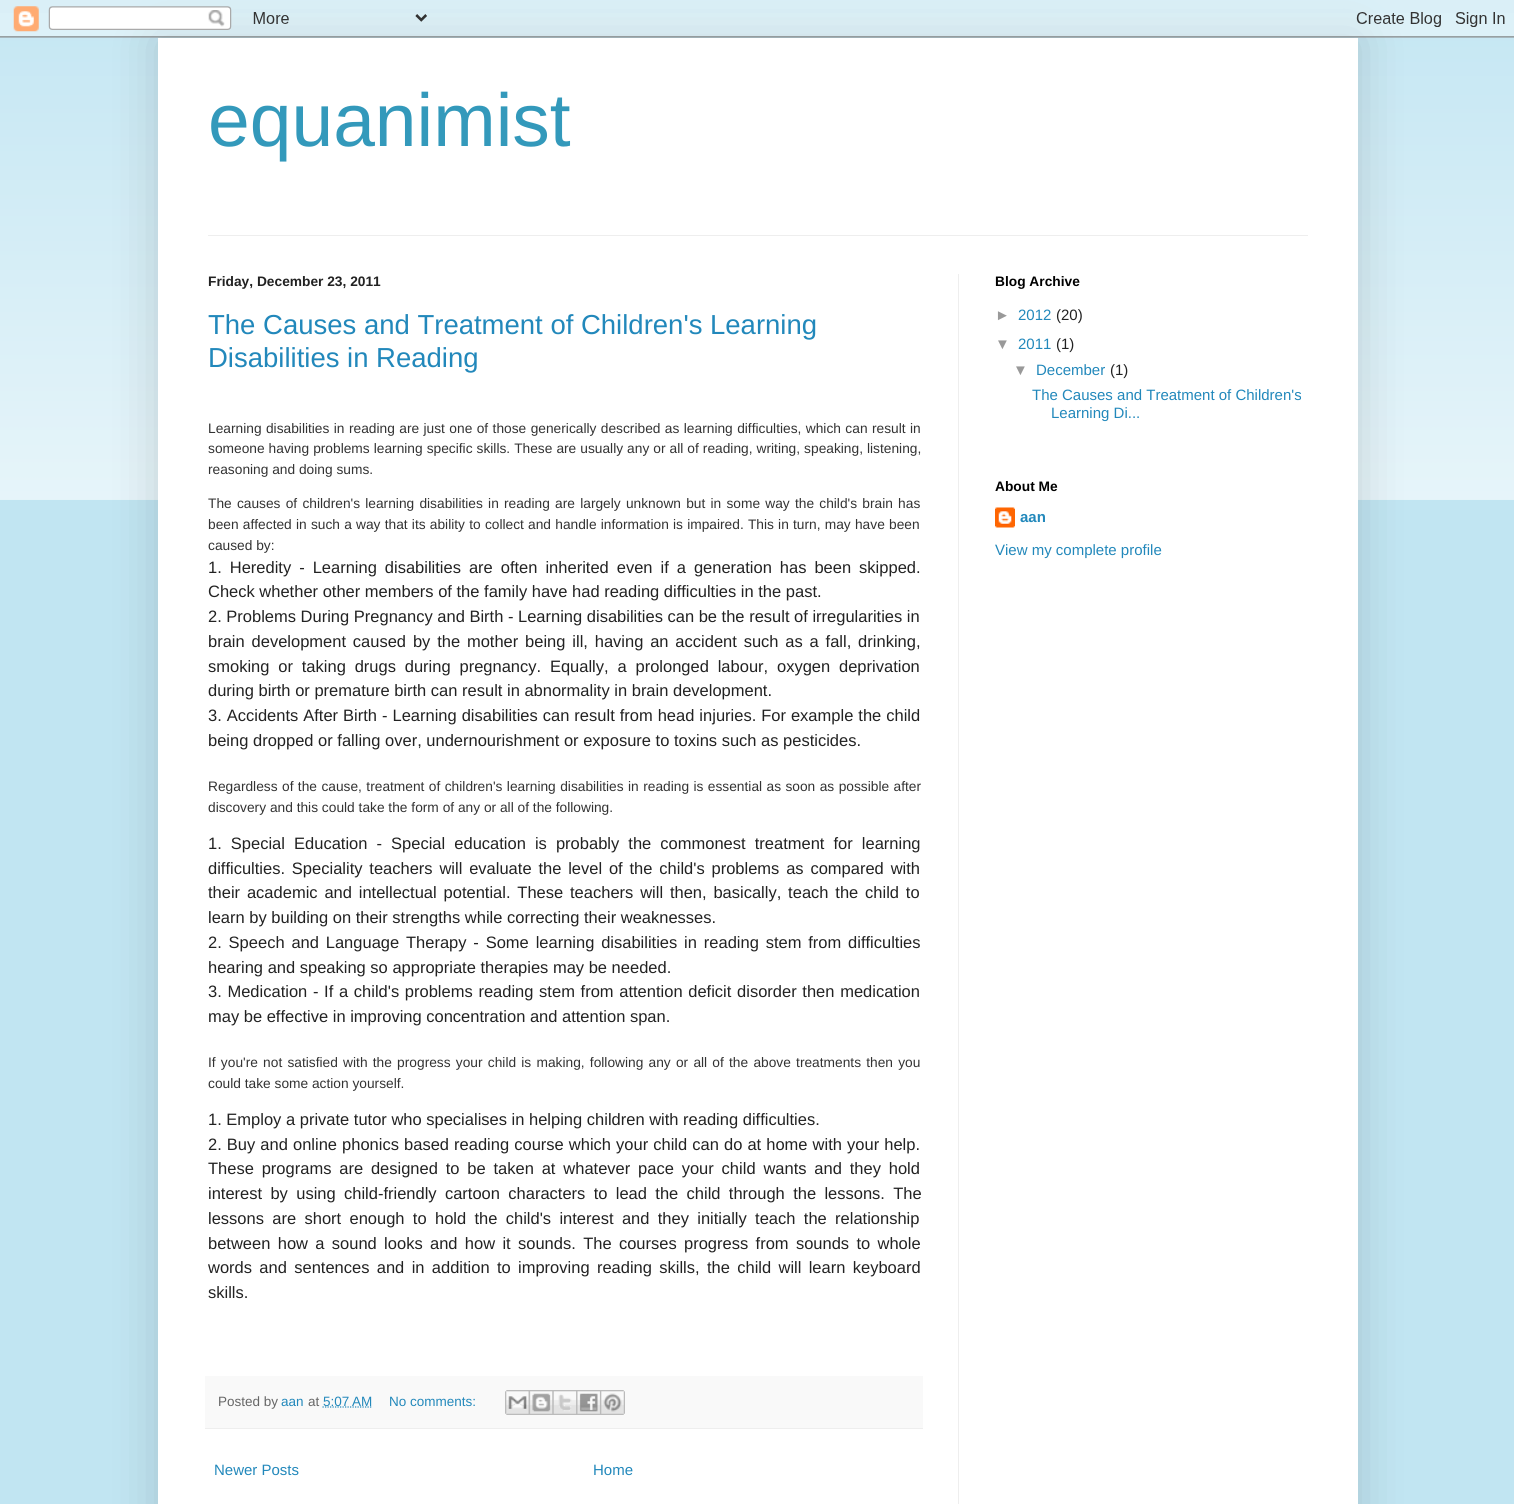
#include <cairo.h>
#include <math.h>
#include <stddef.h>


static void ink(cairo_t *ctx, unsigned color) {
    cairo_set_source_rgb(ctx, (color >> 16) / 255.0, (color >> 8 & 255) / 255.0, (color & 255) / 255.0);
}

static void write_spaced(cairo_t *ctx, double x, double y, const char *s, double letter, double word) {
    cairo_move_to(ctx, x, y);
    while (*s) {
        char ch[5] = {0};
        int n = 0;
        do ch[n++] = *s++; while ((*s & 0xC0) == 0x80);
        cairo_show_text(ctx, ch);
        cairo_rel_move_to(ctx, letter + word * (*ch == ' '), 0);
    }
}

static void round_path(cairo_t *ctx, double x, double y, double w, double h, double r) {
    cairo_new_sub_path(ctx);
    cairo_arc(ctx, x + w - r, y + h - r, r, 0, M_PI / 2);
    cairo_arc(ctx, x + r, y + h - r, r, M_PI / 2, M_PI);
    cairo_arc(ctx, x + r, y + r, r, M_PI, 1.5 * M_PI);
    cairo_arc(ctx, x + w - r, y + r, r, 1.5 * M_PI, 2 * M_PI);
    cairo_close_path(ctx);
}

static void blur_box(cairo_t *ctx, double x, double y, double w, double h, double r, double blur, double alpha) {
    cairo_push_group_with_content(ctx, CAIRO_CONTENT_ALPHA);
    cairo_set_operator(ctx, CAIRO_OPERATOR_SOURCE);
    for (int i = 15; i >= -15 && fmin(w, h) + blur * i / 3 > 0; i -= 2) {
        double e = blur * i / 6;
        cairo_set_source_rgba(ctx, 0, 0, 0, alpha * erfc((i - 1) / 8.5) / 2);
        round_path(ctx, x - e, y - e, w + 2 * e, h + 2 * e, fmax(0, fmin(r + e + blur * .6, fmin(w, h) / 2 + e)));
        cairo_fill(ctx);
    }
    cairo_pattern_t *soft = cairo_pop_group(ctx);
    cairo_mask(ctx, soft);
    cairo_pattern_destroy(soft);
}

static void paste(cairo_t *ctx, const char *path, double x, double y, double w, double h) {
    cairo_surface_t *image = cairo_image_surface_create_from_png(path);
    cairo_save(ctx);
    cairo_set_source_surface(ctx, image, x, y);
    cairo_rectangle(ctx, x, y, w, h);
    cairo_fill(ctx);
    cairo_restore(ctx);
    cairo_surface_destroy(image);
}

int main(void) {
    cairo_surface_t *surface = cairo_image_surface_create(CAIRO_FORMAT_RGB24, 1514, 1504);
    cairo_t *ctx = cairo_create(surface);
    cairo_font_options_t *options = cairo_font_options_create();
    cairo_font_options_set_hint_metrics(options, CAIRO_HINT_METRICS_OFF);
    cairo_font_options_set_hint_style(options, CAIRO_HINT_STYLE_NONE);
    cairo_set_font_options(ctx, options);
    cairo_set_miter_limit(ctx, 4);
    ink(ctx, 0xC1E5F2);
    cairo_paint(ctx);
    paste(ctx, "media/2.png", 0, 13, 1514, 487);
    ink(ctx, 0x000000);
    blur_box(ctx, 158, 38, 1200, 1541, 0, 25, 0.15);
    paste(ctx, "media/1.png", 0, 0, 1514, 38);
    ink(ctx, 0xFFFFFF);
    cairo_rectangle(ctx, 158, 38, 1200, 1466);
    cairo_fill(ctx);
    cairo_select_font_face(ctx, "Liberation Sans", CAIRO_FONT_SLANT_NORMAL, CAIRO_FONT_WEIGHT_NORMAL);
    cairo_set_font_size(ctx, 75);
    ink(ctx, 0x3399BB);
    cairo_move_to(ctx, 208, 146);
    cairo_show_text(ctx, "equanimist");
    ink(ctx, 0xEEEEEE);
    cairo_rectangle(ctx, 208, 235, 1100, 1);
    cairo_fill(ctx);
    cairo_rectangle(ctx, 958, 274, 1, 1230);
    cairo_fill(ctx);
    cairo_select_font_face(ctx, "Liberation Sans", CAIRO_FONT_SLANT_NORMAL, CAIRO_FONT_WEIGHT_BOLD);
    cairo_set_font_size(ctx, 13.75);
    ink(ctx, 0x222222);
    cairo_move_to(ctx, 208, 286);
    cairo_show_text(ctx, "Friday, December 23, 2011");
    cairo_select_font_face(ctx, "Liberation Sans", CAIRO_FONT_SLANT_NORMAL, CAIRO_FONT_WEIGHT_NORMAL);
    cairo_set_font_size(ctx, 27.5);
    ink(ctx, 0x2288BB);
    cairo_move_to(ctx, 208, 334);
    cairo_show_text(ctx, "The Causes and Treatment of Children's Learning");
    cairo_move_to(ctx, 208, 367);
    cairo_show_text(ctx, "Disabilities in Reading");
    cairo_set_font_size(ctx, 13.75);
    ink(ctx, 0x333333);
    write_spaced(ctx, 208, 433, "Learning disabilities in reading are just one of those generically described as learning difficulties, which can result in", 0, 0.6);
    write_spaced(ctx, 208, 453, "someone having problems learning specific skills. These are usually any or all of reading, writing, speaking, listening,", 0, 0.2);
    cairo_move_to(ctx, 208, 474);
    cairo_show_text(ctx, "reasoning and doing sums.");
    write_spaced(ctx, 208, 508, "The causes of children's learning disabilities in reading are largely unknown but in some way the child's brain has", 0, 1.4);
    write_spaced(ctx, 208, 529, "been affected in such a way that its ability to collect and handle information is impaired. This in turn, may have been", 0, 0.4);
    cairo_move_to(ctx, 208, 550);
    cairo_show_text(ctx, "caused by:");
    cairo_set_font_size(ctx, 16.5);
    ink(ctx, 0x222222);
    write_spaced(ctx, 208, 573, "1. Heredity - Learning disabilities are often inherited even if a generation has been skipped.", 0, 3.4);
    cairo_move_to(ctx, 208, 597);
    cairo_show_text(ctx, "Check whether other members of the family have had reading difficulties in the past.");
    cairo_move_to(ctx, 208, 622);
    cairo_show_text(ctx, "2. Problems During Pregnancy and Birth - Learning disabilities can be the result of irregularities in");
    write_spaced(ctx, 208, 647, "brain development caused by the mother being ill, having an accident such as a fall, drinking,", 0, 2.25);
    write_spaced(ctx, 208, 672, "smoking or taking drugs during pregnancy. Equally, a prolonged labour, oxygen deprivation", 0, 4.25);
    cairo_move_to(ctx, 208, 696);
    cairo_show_text(ctx, "during birth or premature birth can result in abnormality in brain development.");
    write_spaced(ctx, 208, 721, "3. Accidents After Birth - Learning disabilities can result from head injuries. For example the child", 0, 0.4);
    cairo_move_to(ctx, 208, 746);
    cairo_show_text(ctx, "being dropped or falling over, undernourishment or exposure to toxins such as pesticides.");
    cairo_set_font_size(ctx, 13.75);
    ink(ctx, 0x333333);
    write_spaced(ctx, 208, 791, "Regardless of the cause, treatment of children's learning disabilities in reading is essential as soon as possible after", 0, 0.6);
    cairo_move_to(ctx, 208, 812);
    cairo_show_text(ctx, "discovery and this could take the form of any or all of the following.");
    cairo_set_font_size(ctx, 16.5);
    ink(ctx, 0x222222);
    write_spaced(ctx, 208, 849, "1. Special Education - Special education is probably the commonest treatment for learning", 0, 4.5);
    write_spaced(ctx, 208, 874, "difficulties. Speciality teachers will evaluate the level of the child's problems as compared with", 0, 2.25);
    write_spaced(ctx, 208, 898, "their academic and intellectual potential. These teachers will then, basically, teach the child to", 0, 2.25);
    cairo_move_to(ctx, 208, 923);
    cairo_show_text(ctx, "learn by building on their strengths while correcting their weaknesses.");
    write_spaced(ctx, 208, 948, "2. Speech and Language Therapy - Some learning disabilities in reading stem from difficulties", 0, 2.25);
    cairo_move_to(ctx, 208, 973);
    cairo_show_text(ctx, "hearing and speaking so appropriate therapies may be needed.");
    write_spaced(ctx, 208, 997, "3. Medication - If a child's problems reading stem from attention deficit disorder then medication", 0, 1.1);
    cairo_move_to(ctx, 208, 1022);
    cairo_show_text(ctx, "may be effective in improving concentration and attention span.");
    cairo_set_font_size(ctx, 13.75);
    ink(ctx, 0x333333);
    write_spaced(ctx, 208, 1067, "If you're not satisfied with the progress your child is making, following any or all of the above treatments then you", 0, 1.4);
    cairo_move_to(ctx, 208, 1088);
    cairo_show_text(ctx, "could take some action yourself.");
    cairo_set_font_size(ctx, 16.5);
    ink(ctx, 0x222222);
    cairo_move_to(ctx, 208, 1125);
    cairo_show_text(ctx, "1. Employ a private tutor who specialises in helping children with reading difficulties.");
    write_spaced(ctx, 208, 1150, "2. Buy and online phonics based reading course which your child can do at home with your help.", 0, 0.5);
    write_spaced(ctx, 208, 1174, "These programs are designed to be taken at whatever pace your child wants and they hold", 0, 3.25);
    write_spaced(ctx, 208, 1199, "interest by using child-friendly cartoon characters to lead the child through the lessons. The", 0, 3.75);
    write_spaced(ctx, 208, 1224, "lessons are short enough to hold the child's interest and they initially teach the relationship", 0, 3.75);
    write_spaced(ctx, 208, 1249, "between how a sound looks and how it sounds. The courses progress from sounds to whole", 0, 2.75);
    write_spaced(ctx, 208, 1273, "words and sentences and in addition to improving reading skills, the child will learn keyboard", 0, 2.75);
    cairo_move_to(ctx, 208, 1298);
    cairo_show_text(ctx, "skills.");
    ink(ctx, 0xF9F9F9);
    cairo_rectangle(ctx, 205, 1376, 718, 52);
    cairo_fill(ctx);
    ink(ctx, 0xEEEEEE);
    cairo_rectangle(ctx, 205, 1428, 718, 1);
    cairo_fill(ctx);
    cairo_set_font_size(ctx, 13.5);
    ink(ctx, 0x666666);
    cairo_move_to(ctx, 218, 1406);
    cairo_show_text(ctx, "Posted by");
    ink(ctx, 0x2288BB);
    cairo_move_to(ctx, 281, 1406);
    cairo_show_text(ctx, "aan");
    ink(ctx, 0x666666);
    cairo_move_to(ctx, 308, 1406);
    cairo_show_text(ctx, "at");
    cairo_new_path(ctx);
    cairo_move_to(ctx, 322.5, 1407);
    cairo_line_to(ctx, 372, 1407);
    ink(ctx, 0x2288BB);
    cairo_set_line_width(ctx, 1.2);
    cairo_set_dash(ctx, (double[]){1.25, 1.25}, 2, 0);
    cairo_stroke(ctx);
    cairo_move_to(ctx, 323, 1406);
    cairo_show_text(ctx, "5:07 AM");
    cairo_move_to(ctx, 389, 1406);
    cairo_show_text(ctx, "No comments:");
    paste(ctx, "media/3.png", 505, 1390, 24, 25);
    paste(ctx, "media/4.png", 528, 1390, 25, 25);
    paste(ctx, "media/5.png", 552, 1390, 25, 25);
    paste(ctx, "media/6.png", 576, 1390, 24, 25);
    paste(ctx, "media/7.png", 600, 1390, 25, 25);
    cairo_set_font_size(ctx, 15);
    cairo_move_to(ctx, 214, 1475);
    cairo_show_text(ctx, "Newer Posts");
    cairo_move_to(ctx, 593, 1475);
    cairo_show_text(ctx, "Home");
    cairo_select_font_face(ctx, "Liberation Sans", CAIRO_FONT_SLANT_NORMAL, CAIRO_FONT_WEIGHT_BOLD);
    cairo_set_font_size(ctx, 13.75);
    ink(ctx, 0x000000);
    cairo_move_to(ctx, 995, 286);
    cairo_show_text(ctx, "Blog Archive");
    cairo_select_font_face(ctx, "Liberation Sans", CAIRO_FONT_SLANT_NORMAL, CAIRO_FONT_WEIGHT_NORMAL);
    cairo_set_font_size(ctx, 15);
    ink(ctx, 0x999999);
    cairo_move_to(ctx, 995, 320);
    cairo_show_text(ctx, "►");
    ink(ctx, 0x2288BB);
    cairo_move_to(ctx, 1018, 320);
    cairo_show_text(ctx, "2012");
    ink(ctx, 0x222222);
    cairo_move_to(ctx, 1056, 320);
    cairo_show_text(ctx, "(20)");
    ink(ctx, 0x999999);
    cairo_move_to(ctx, 995, 349);
    cairo_show_text(ctx, "▼");
    ink(ctx, 0x2288BB);
    cairo_move_to(ctx, 1018, 349);
    cairo_show_text(ctx, "2011");
    ink(ctx, 0x222222);
    cairo_move_to(ctx, 1056, 349);
    cairo_show_text(ctx, "(1)");
    ink(ctx, 0x999999);
    cairo_move_to(ctx, 1013, 375);
    cairo_show_text(ctx, "▼");
    ink(ctx, 0x2288BB);
    cairo_move_to(ctx, 1036, 375);
    cairo_show_text(ctx, "December");
    ink(ctx, 0x222222);
    cairo_move_to(ctx, 1110, 375);
    cairo_show_text(ctx, "(1)");
    ink(ctx, 0x2288BB);
    cairo_move_to(ctx, 1032, 400);
    cairo_show_text(ctx, "The Causes and Treatment of Children's");
    cairo_move_to(ctx, 1051, 418);
    cairo_show_text(ctx, "Learning Di...");
    cairo_select_font_face(ctx, "Liberation Sans", CAIRO_FONT_SLANT_NORMAL, CAIRO_FONT_WEIGHT_BOLD);
    cairo_set_font_size(ctx, 13.75);
    ink(ctx, 0x000000);
    cairo_move_to(ctx, 995, 491);
    cairo_show_text(ctx, "About Me");
    paste(ctx, "media/8.png", 995, 507, 20, 21);
    cairo_set_font_size(ctx, 15);
    ink(ctx, 0x2288BB);
    cairo_move_to(ctx, 1020, 522);
    cairo_show_text(ctx, "aan");
    cairo_select_font_face(ctx, "Liberation Sans", CAIRO_FONT_SLANT_NORMAL, CAIRO_FONT_WEIGHT_NORMAL);
    cairo_move_to(ctx, 995, 555);
    cairo_show_text(ctx, "View my complete profile");
    cairo_surface_write_to_png(surface, "image.png");
    cairo_font_options_destroy(options);
    cairo_destroy(ctx);
    cairo_surface_destroy(surface);
    return 0;
}
